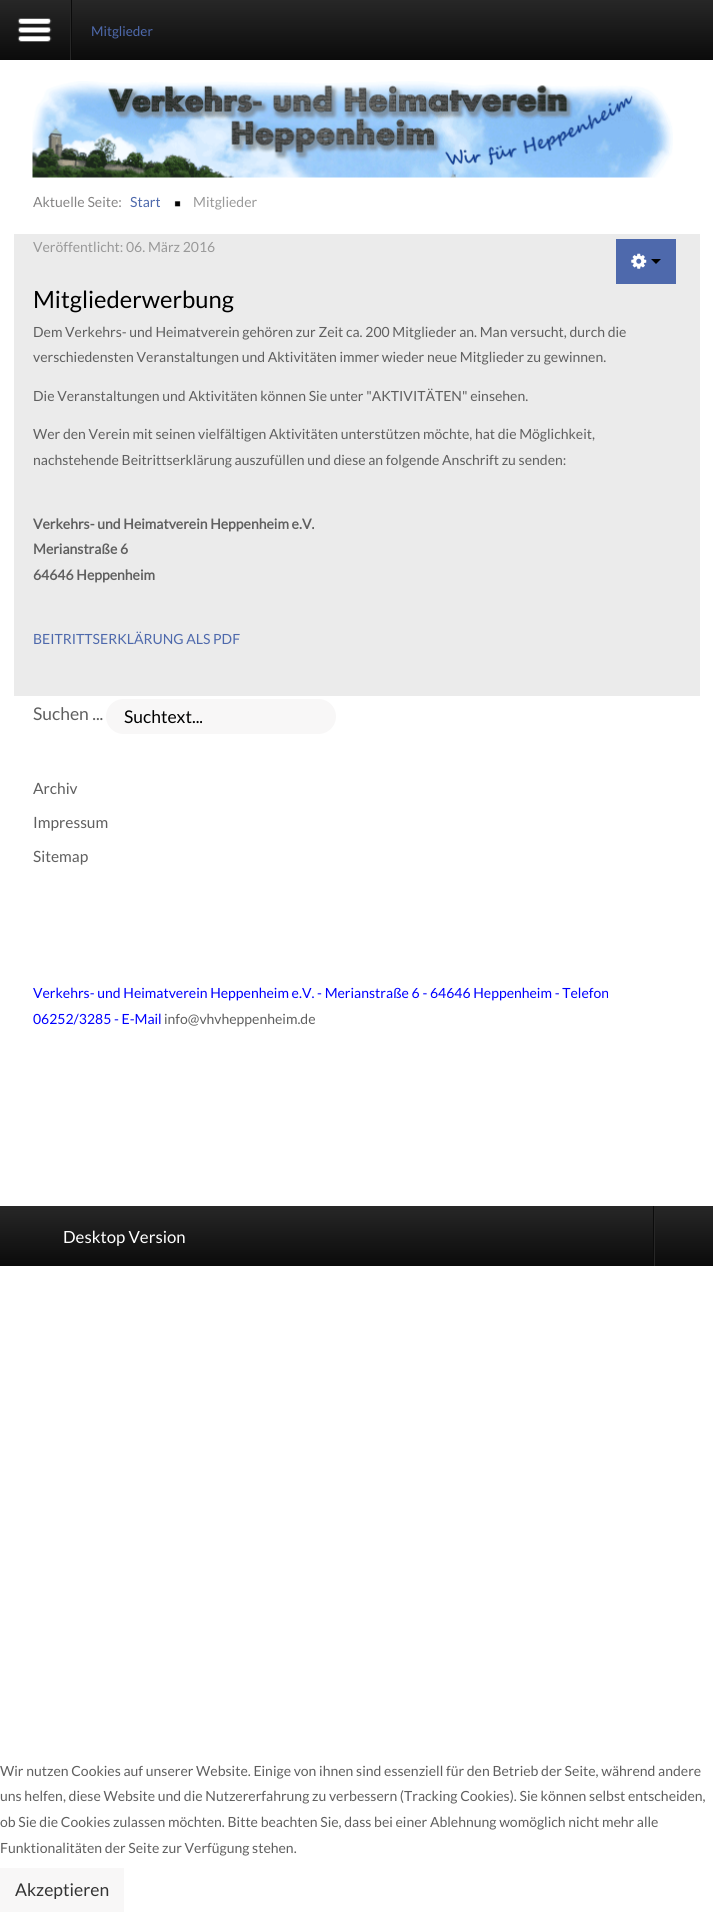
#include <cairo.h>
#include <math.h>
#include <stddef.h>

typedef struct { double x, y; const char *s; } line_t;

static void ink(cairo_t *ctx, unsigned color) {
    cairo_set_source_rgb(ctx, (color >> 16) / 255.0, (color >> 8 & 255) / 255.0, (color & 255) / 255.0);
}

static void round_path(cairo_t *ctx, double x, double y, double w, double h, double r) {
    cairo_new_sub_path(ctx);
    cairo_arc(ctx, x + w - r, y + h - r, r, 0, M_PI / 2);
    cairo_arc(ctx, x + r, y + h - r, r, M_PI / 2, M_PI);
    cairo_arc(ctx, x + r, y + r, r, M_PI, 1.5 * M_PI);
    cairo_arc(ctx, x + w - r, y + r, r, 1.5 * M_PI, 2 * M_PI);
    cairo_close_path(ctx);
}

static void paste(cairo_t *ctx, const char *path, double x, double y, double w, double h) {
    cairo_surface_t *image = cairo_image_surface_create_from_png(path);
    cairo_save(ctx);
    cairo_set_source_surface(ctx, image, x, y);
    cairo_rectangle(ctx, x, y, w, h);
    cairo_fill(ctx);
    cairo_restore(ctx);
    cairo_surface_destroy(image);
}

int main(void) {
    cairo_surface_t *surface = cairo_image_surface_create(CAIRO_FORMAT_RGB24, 713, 1912);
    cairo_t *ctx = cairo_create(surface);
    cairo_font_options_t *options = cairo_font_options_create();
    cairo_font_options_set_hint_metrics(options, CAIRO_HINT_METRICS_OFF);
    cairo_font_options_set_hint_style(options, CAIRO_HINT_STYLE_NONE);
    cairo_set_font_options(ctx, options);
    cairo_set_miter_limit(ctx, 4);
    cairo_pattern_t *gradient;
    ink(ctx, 0xFFFFFF);
    cairo_paint(ctx);
    gradient = cairo_pattern_create_linear(357, 0, 357, 60);
    cairo_pattern_add_color_stop_rgba(gradient, 0, 0.153, 0.153, 0.153, 1);
    cairo_pattern_add_color_stop_rgba(gradient, 1, 0.043, 0.043, 0.043, 1);
    cairo_set_source(ctx, gradient);
    cairo_pattern_destroy(gradient);
    cairo_rectangle(ctx, 0, 0, 713, 60);
    cairo_fill(ctx);
    ink(ctx, 0x0B0B0B);
    cairo_rectangle(ctx, 71, 0, 1, 60);
    cairo_fill(ctx);
    paste(ctx, "media/1.png", 17, 18, 35, 24);
    ink(ctx, 0x272727);
    cairo_rectangle(ctx, 70, 0, 1, 60);
    cairo_fill(ctx);
    cairo_select_font_face(ctx, "Lato", CAIRO_FONT_SLANT_NORMAL, CAIRO_FONT_WEIGHT_NORMAL);
    cairo_set_font_size(ctx, 13.5);
    ink(ctx, 0x4E69AC);
    cairo_move_to(ctx, 91, 36);
    cairo_show_text(ctx, "Mitglieder");
    paste(ctx, "media/2.png", 32, 81, 641, 97);
    cairo_set_font_size(ctx, 14);
    ink(ctx, 0x858484);
    cairo_move_to(ctx, 33, 207);
    cairo_show_text(ctx, "Aktuelle Seite:");
    ink(ctx, 0x4E69AC);
    cairo_move_to(ctx, 130, 207);
    cairo_show_text(ctx, "Start");
    paste(ctx, "media/3.png", 174, 201, 7, 6);
    ink(ctx, 0x999999);
    cairo_move_to(ctx, 193, 207);
    cairo_show_text(ctx, "Mitglieder");
    ink(ctx, 0xEBEBEB);
    cairo_rectangle(ctx, 14, 234, 686, 462);
    cairo_fill(ctx);
    ink(ctx, 0x999999);
    cairo_move_to(ctx, 33, 252);
    cairo_show_text(ctx, "Veröffentlicht: 06. März 2016");
    ink(ctx, 0x4E69AC);
    cairo_rectangle(ctx, 616, 239, 60, 45);
    cairo_fill(ctx);
    paste(ctx, "media/4.png", 631, 253, 16, 16);
    ink(ctx, 0x000000);
    cairo_new_path(ctx);
    cairo_move_to(ctx, 651, 259);
    cairo_line_to(ctx, 661, 259);
    cairo_line_to(ctx, 656, 264);
    cairo_close_path(ctx);
    cairo_fill(ctx);
    cairo_set_font_size(ctx, 23.75);
    cairo_move_to(ctx, 33, 308);
    cairo_show_text(ctx, "Mitgliederwerbung");
    cairo_set_font_size(ctx, 14);
    ink(ctx, 0x5F5F5F);
    {
        static const line_t items[] = {
            {33, 337, "Dem Verkehrs- und Heimatverein gehören zur Zeit ca. 200 Mitglieder an. Man versucht, durch die"},
            {33, 362, "verschiedensten Veranstaltungen und Aktivitäten immer wieder neue Mitglieder zu gewinnen."},
            {33, 401, "Die Veranstaltungen und Aktivitäten können Sie unter \"AKTIVITÄTEN\" einsehen."},
            {33, 439, "Wer den Verein mit seinen vielfältigen Aktivitäten unterstützen möchte, hat die Möglichkeit,"},
            {33, 465, "nachstehende Beitrittserklärung auszufüllen und diese an folgende Anschrift zu senden:"},
        };
        for (size_t i = 0; i < sizeof items / sizeof *items; i++) {
            cairo_move_to(ctx, items[i].x, items[i].y);
            cairo_show_text(ctx, items[i].s);
        }
    }
    cairo_select_font_face(ctx, "Lato", CAIRO_FONT_SLANT_NORMAL, CAIRO_FONT_WEIGHT_BOLD);
    {
        static const line_t items[] = {
            {33, 529, "Verkehrs- und Heimatverein Heppenheim e.V."},
            {33, 554, "Merianstraße 6"},
            {33, 580, "64646 Heppenheim"},
        };
        for (size_t i = 0; i < sizeof items / sizeof *items; i++) {
            cairo_move_to(ctx, items[i].x, items[i].y);
            cairo_show_text(ctx, items[i].s);
        }
    }
    cairo_select_font_face(ctx, "Lato", CAIRO_FONT_SLANT_NORMAL, CAIRO_FONT_WEIGHT_NORMAL);
    ink(ctx, 0x4E69AC);
    cairo_move_to(ctx, 33, 644);
    cairo_show_text(ctx, "BEITRITTSERKLÄRUNG ALS PDF");
    cairo_set_font_size(ctx, 17.5);
    ink(ctx, 0x5F5F5F);
    cairo_move_to(ctx, 33, 720);
    cairo_show_text(ctx, "Suchen ...");
    ink(ctx, 0xF8F7F7);
    round_path(ctx, 106, 699, 230, 35, 17.5);
    cairo_fill(ctx);
    ink(ctx, 0x000000);
    cairo_move_to(ctx, 124, 723);
    cairo_show_text(ctx, "Suchtext...");
    cairo_set_font_size(ctx, 15.5);
    ink(ctx, 0x5F5F5F);
    {
        static const line_t items[] = {
            {33, 794, "Archiv"},
            {33, 828, "Impressum"},
            {33, 862, "Sitemap"},
        };
        for (size_t i = 0; i < sizeof items / sizeof *items; i++) {
            cairo_move_to(ctx, items[i].x, items[i].y);
            cairo_show_text(ctx, items[i].s);
        }
    }
    cairo_set_font_size(ctx, 14);
    ink(ctx, 0x0000FF);
    cairo_move_to(ctx, 33, 998);
    cairo_show_text(ctx, "Verkehrs- und Heimatverein Heppenheim e.V. - Merianstraße 6 - 64646 Heppenheim - Telefon");
    cairo_move_to(ctx, 33, 1024);
    cairo_show_text(ctx, "06252/3285 - E-Mail");
    ink(ctx, 0x5F5F5F);
    cairo_move_to(ctx, 164, 1024);
    cairo_show_text(ctx, "info@vhvheppenheim.de");
    gradient = cairo_pattern_create_linear(357, 1206, 357, 1266);
    cairo_pattern_add_color_stop_rgba(gradient, 0, 0.153, 0.153, 0.153, 1);
    cairo_pattern_add_color_stop_rgba(gradient, 1, 0.043, 0.043, 0.043, 1);
    cairo_set_source(ctx, gradient);
    cairo_pattern_destroy(gradient);
    cairo_rectangle(ctx, 0, 1206, 713, 60);
    cairo_fill(ctx);
    cairo_set_font_size(ctx, 16.75);
    ink(ctx, 0xFFFFFF);
    cairo_move_to(ctx, 63, 1243);
    cairo_show_text(ctx, "Desktop Version");
    ink(ctx, 0x0B0B0B);
    cairo_rectangle(ctx, 653, 1206, 1, 60);
    cairo_fill(ctx);
    ink(ctx, 0x272727);
    cairo_rectangle(ctx, 654, 1206, 1, 60);
    cairo_fill(ctx);
    cairo_set_font_size(ctx, 14);
    ink(ctx, 0x5F5F5F);
    {
        static const line_t items[] = {
            {0, 1776, "Wir nutzen Cookies auf unserer Website. Einige von ihnen sind essenziell für den Betrieb der Seite, während andere"},
            {0, 1801, "uns helfen, diese Website und die Nutzererfahrung zu verbessern (Tracking Cookies). Sie können selbst entscheiden,"},
            {0, 1827, "ob Sie die Cookies zulassen möchten. Bitte beachten Sie, dass bei einer Ablehnung womöglich nicht mehr alle"},
            {0, 1853, "Funktionalitäten der Seite zur Verfügung stehen."},
        };
        for (size_t i = 0; i < sizeof items / sizeof *items; i++) {
            cairo_move_to(ctx, items[i].x, items[i].y);
            cairo_show_text(ctx, items[i].s);
        }
    }
    ink(ctx, 0xF8F7F7);
    cairo_rectangle(ctx, 0, 1868, 124, 44);
    cairo_fill(ctx);
    cairo_set_font_size(ctx, 17.5);
    ink(ctx, 0x333333);
    cairo_move_to(ctx, 15, 1896);
    cairo_show_text(ctx, "Akzeptieren");
    cairo_surface_write_to_png(surface, "image.png");
    cairo_font_options_destroy(options);
    cairo_destroy(ctx);
    cairo_surface_destroy(surface);
    return 0;
}
